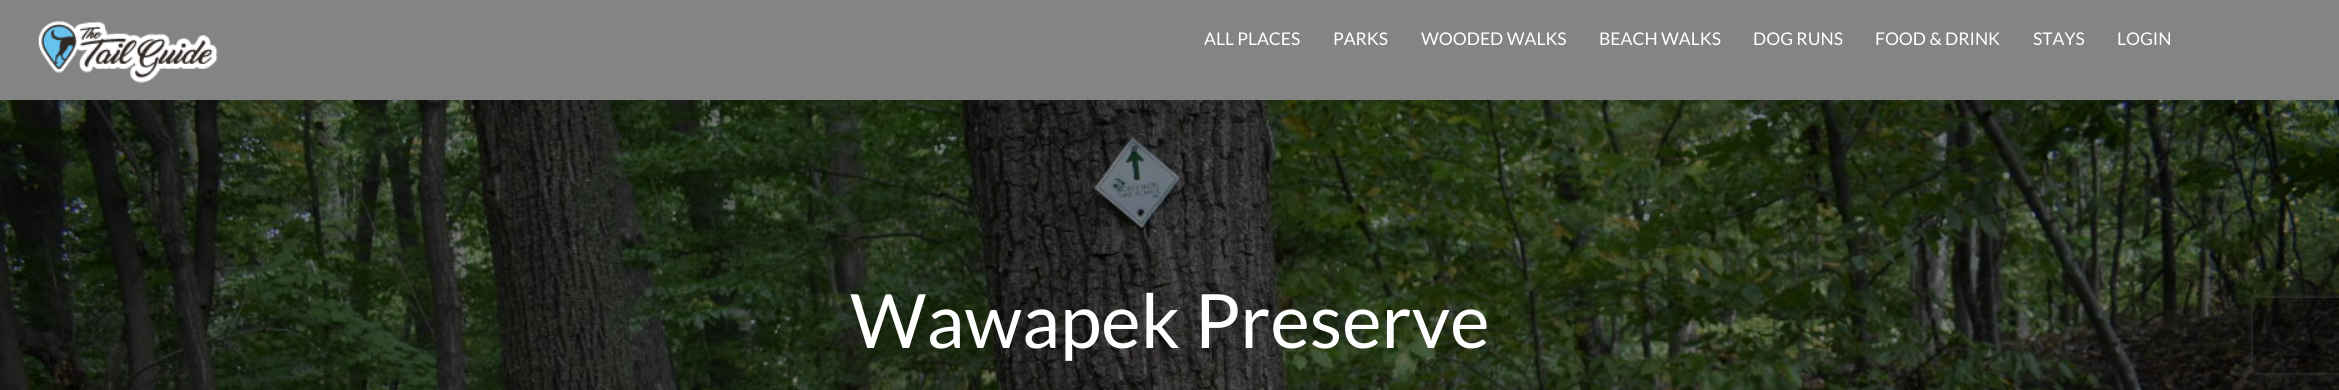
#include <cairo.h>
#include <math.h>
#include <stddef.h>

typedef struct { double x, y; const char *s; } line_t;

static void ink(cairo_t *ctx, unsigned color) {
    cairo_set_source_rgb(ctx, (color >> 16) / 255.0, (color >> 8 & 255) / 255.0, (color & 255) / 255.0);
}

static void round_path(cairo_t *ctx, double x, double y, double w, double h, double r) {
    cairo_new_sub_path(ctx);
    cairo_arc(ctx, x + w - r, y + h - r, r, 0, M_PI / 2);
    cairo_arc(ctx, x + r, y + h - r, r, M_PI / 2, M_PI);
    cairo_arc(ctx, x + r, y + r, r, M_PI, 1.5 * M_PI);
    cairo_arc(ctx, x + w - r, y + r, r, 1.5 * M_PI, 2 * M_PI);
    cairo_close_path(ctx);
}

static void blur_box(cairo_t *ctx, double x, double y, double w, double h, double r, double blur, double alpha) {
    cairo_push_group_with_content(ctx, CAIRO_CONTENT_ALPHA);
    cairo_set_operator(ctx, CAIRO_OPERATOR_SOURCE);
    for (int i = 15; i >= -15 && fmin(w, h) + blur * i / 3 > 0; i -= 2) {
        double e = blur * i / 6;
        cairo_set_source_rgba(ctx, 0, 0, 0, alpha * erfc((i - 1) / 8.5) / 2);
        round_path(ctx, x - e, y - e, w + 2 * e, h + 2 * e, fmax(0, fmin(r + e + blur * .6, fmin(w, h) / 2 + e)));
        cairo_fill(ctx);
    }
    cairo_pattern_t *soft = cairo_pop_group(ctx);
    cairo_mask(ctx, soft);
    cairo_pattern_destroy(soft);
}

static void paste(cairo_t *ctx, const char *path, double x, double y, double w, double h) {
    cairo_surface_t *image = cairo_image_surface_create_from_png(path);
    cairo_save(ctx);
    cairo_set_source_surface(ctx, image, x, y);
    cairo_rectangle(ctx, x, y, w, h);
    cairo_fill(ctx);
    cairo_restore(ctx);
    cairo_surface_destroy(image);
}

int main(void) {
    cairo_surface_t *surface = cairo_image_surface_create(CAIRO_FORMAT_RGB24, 2339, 390);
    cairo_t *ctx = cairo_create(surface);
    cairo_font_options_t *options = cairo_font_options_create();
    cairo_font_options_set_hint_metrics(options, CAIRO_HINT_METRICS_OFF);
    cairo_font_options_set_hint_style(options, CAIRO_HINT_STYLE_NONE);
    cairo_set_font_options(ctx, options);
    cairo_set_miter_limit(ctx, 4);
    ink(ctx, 0x848484);
    cairo_paint(ctx);
    paste(ctx, "media/1.png", 38, 21, 180, 62);
    cairo_select_font_face(ctx, "Lato", CAIRO_FONT_SLANT_NORMAL, CAIRO_FONT_WEIGHT_NORMAL);
    cairo_set_font_size(ctx, 17.5);
    ink(ctx, 0xFFFFFF);
    {
        static const line_t items[] = {
            {1204, 45, "ALL PLACES"},
            {1333, 45, "PARKS"},
            {1421, 45, "WOODED WALKS"},
            {1599, 45, "BEACH WALKS"},
            {1753, 45, "DOG RUNS"},
            {1875, 45, "FOOD & DRINK"},
            {2033, 45, "STAYS"},
            {2117, 45, "LOGIN"},
        };
        for (size_t i = 0; i < sizeof items / sizeof *items; i++) {
            cairo_move_to(ctx, items[i].x, items[i].y);
            cairo_show_text(ctx, items[i].s);
        }
    }
    paste(ctx, "media/2.png", 0, 100, 2339, 290);
    cairo_set_font_size(ctx, 75);
    cairo_move_to(ctx, 850, 348);
    cairo_show_text(ctx, "Wawapek Preserve");
    cairo_save(ctx);
    cairo_set_fill_rule(ctx, CAIRO_FILL_RULE_EVEN_ODD);
    cairo_new_path(ctx);
    cairo_move_to(ctx, 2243, 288);
    cairo_line_to(ctx, 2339, 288);
    cairo_line_to(ctx, 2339, 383);
    cairo_line_to(ctx, 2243, 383);
    cairo_close_path(ctx);
    cairo_move_to(ctx, 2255.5, 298);
    cairo_line_to(ctx, 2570.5, 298);
    cairo_curve_to(ctx, 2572, 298, 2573, 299, 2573, 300.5);
    cairo_line_to(ctx, 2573, 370.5);
    cairo_curve_to(ctx, 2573, 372, 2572, 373, 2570.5, 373);
    cairo_line_to(ctx, 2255.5, 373);
    cairo_curve_to(ctx, 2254, 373, 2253, 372, 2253, 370.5);
    cairo_line_to(ctx, 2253, 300.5);
    cairo_curve_to(ctx, 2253, 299, 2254, 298, 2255.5, 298);
    cairo_close_path(ctx);
    cairo_clip(ctx);
    ink(ctx, 0x404040);
    blur_box(ctx, 2253, 298, 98, 75, 2.5, 3, 1);
    cairo_restore(ctx);
    cairo_surface_write_to_png(surface, "image.png");
    cairo_font_options_destroy(options);
    cairo_destroy(ctx);
    cairo_surface_destroy(surface);
    return 0;
}
